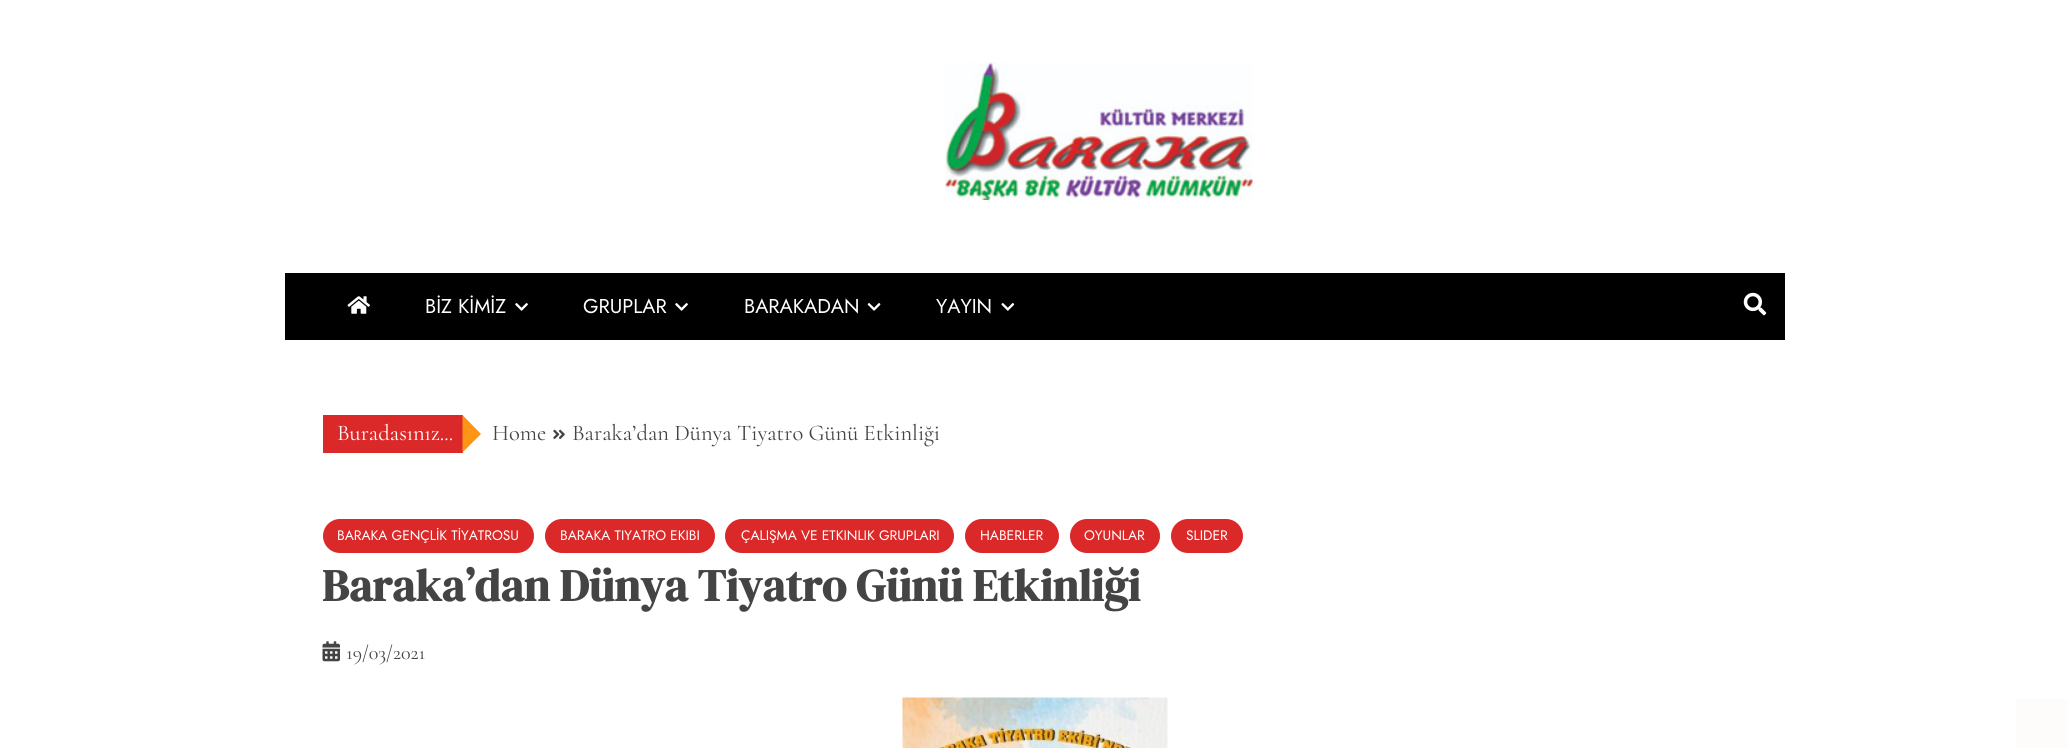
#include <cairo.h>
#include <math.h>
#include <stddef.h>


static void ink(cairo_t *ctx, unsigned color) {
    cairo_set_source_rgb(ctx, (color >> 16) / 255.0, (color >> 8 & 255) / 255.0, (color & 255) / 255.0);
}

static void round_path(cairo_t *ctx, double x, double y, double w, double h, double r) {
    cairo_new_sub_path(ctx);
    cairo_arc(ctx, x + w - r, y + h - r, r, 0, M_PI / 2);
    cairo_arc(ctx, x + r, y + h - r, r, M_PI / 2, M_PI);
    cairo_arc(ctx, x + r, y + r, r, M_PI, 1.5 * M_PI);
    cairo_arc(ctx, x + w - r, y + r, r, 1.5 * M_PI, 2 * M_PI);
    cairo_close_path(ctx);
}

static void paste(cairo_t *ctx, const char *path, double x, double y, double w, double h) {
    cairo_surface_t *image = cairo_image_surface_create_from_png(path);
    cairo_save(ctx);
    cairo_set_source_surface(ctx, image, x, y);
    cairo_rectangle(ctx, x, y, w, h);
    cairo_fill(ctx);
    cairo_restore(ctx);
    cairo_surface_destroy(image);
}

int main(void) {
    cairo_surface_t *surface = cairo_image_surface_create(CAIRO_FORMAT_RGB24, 2068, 748);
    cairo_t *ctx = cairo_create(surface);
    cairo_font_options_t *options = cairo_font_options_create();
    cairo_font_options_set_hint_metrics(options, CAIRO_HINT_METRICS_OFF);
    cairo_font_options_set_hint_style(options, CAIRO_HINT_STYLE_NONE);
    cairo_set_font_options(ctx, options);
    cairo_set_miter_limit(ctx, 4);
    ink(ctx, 0xFFFFFF);
    cairo_paint(ctx);
    paste(ctx, "media/1.png", 945, 62, 308, 138);
    ink(ctx, 0x000000);
    cairo_rectangle(ctx, 285, 273, 1500, 67);
    cairo_fill(ctx);
    paste(ctx, "media/2.png", 347, 296, 23, 18);
    cairo_select_font_face(ctx, "Jost", CAIRO_FONT_SLANT_NORMAL, CAIRO_FONT_WEIGHT_NORMAL);
    cairo_set_font_size(ctx, 20);
    ink(ctx, 0xFFFFFF);
    cairo_move_to(ctx, 425, 313);
    cairo_show_text(ctx, "BİZ KİMİZ");
    paste(ctx, "media/3.png", 515, 303, 13, 8);
    cairo_move_to(ctx, 583, 313);
    cairo_show_text(ctx, "GRUPLAR");
    paste(ctx, "media/3.png", 675, 303, 13, 8);
    cairo_move_to(ctx, 744, 313);
    cairo_show_text(ctx, "BARAKADAN");
    paste(ctx, "media/4.png", 867, 303, 14, 8);
    cairo_move_to(ctx, 936, 313);
    cairo_show_text(ctx, "YAYIN");
    paste(ctx, "media/5.png", 1001, 303, 14, 8);
    paste(ctx, "media/6.png", 1743, 292, 24, 24);
    ink(ctx, 0xDB2929);
    cairo_rectangle(ctx, 323, 415, 140, 38);
    cairo_fill(ctx);
    cairo_select_font_face(ctx, "Cormorant", CAIRO_FONT_SLANT_NORMAL, CAIRO_FONT_WEIGHT_NORMAL);
    cairo_set_font_size(ctx, 22.5);
    ink(ctx, 0xFFFFFF);
    cairo_move_to(ctx, 337, 440);
    cairo_show_text(ctx, "Buradasınız...");
    ink(ctx, 0xFF9516);
    cairo_new_path(ctx);
    cairo_move_to(ctx, 462.5, 452.5);
    cairo_line_to(ctx, 462.5, 415);
    cairo_line_to(ctx, 481, 434);
    cairo_close_path(ctx);
    cairo_fill(ctx);
    ink(ctx, 0x444444);
    cairo_move_to(ctx, 492, 440);
    cairo_show_text(ctx, "Home");
    paste(ctx, "media/7.png", 553, 429, 12, 10);
    cairo_move_to(ctx, 572, 440);
    cairo_show_text(ctx, "Baraka’dan Dünya Tiyatro Günü Etkinliği");
    ink(ctx, 0xDB2929);
    round_path(ctx, 323, 519, 211, 34, 17);
    cairo_fill(ctx);
    cairo_select_font_face(ctx, "Jost", CAIRO_FONT_SLANT_NORMAL, CAIRO_FONT_WEIGHT_NORMAL);
    cairo_set_font_size(ctx, 13.75);
    ink(ctx, 0xFFFFFF);
    cairo_move_to(ctx, 337, 540);
    cairo_show_text(ctx, "BARAKA GENÇLİK TİYATROSU");
    ink(ctx, 0xDB2929);
    round_path(ctx, 545, 519, 170, 34, 17);
    cairo_fill(ctx);
    ink(ctx, 0xFFFFFF);
    cairo_move_to(ctx, 560, 540);
    cairo_show_text(ctx, "BARAKA TIYATRO EKIBI");
    ink(ctx, 0xDB2929);
    round_path(ctx, 725, 519, 229, 34, 17);
    cairo_fill(ctx);
    ink(ctx, 0xFFFFFF);
    cairo_move_to(ctx, 741, 540);
    cairo_show_text(ctx, "ÇALIŞMA VE ETKINLIK GRUPLARI");
    ink(ctx, 0xDB2929);
    round_path(ctx, 965, 519, 94, 34, 17);
    cairo_fill(ctx);
    ink(ctx, 0xFFFFFF);
    cairo_move_to(ctx, 980, 540);
    cairo_show_text(ctx, "HABERLER");
    ink(ctx, 0xDB2929);
    round_path(ctx, 1070, 519, 90, 34, 17);
    cairo_fill(ctx);
    ink(ctx, 0xFFFFFF);
    cairo_move_to(ctx, 1084, 540);
    cairo_show_text(ctx, "OYUNLAR");
    ink(ctx, 0xDB2929);
    round_path(ctx, 1171, 519, 72, 34, 17);
    cairo_fill(ctx);
    ink(ctx, 0xFFFFFF);
    cairo_move_to(ctx, 1186, 540);
    cairo_show_text(ctx, "SLIDER");
    cairo_select_font_face(ctx, "DM Serif Display", CAIRO_FONT_SLANT_NORMAL, CAIRO_FONT_WEIGHT_BOLD);
    cairo_set_font_size(ctx, 45);
    ink(ctx, 0x444444);
    cairo_move_to(ctx, 322, 601);
    cairo_show_text(ctx, "Baraka’dan Dünya Tiyatro Günü Etkinliği");
    paste(ctx, "media/8.png", 322, 641, 18, 21);
    cairo_select_font_face(ctx, "Cormorant", CAIRO_FONT_SLANT_NORMAL, CAIRO_FONT_WEIGHT_NORMAL);
    cairo_set_font_size(ctx, 20);
    cairo_move_to(ctx, 346, 659);
    cairo_show_text(ctx, "19/03/2021");
    paste(ctx, "media/9.png", 902, 697, 266, 51);
    ink(ctx, 0xFEFBFB);
    cairo_rectangle(ctx, 2016, 699, 52, 49);
    cairo_fill(ctx);
    cairo_surface_write_to_png(surface, "image.png");
    cairo_font_options_destroy(options);
    cairo_destroy(ctx);
    cairo_surface_destroy(surface);
    return 0;
}
